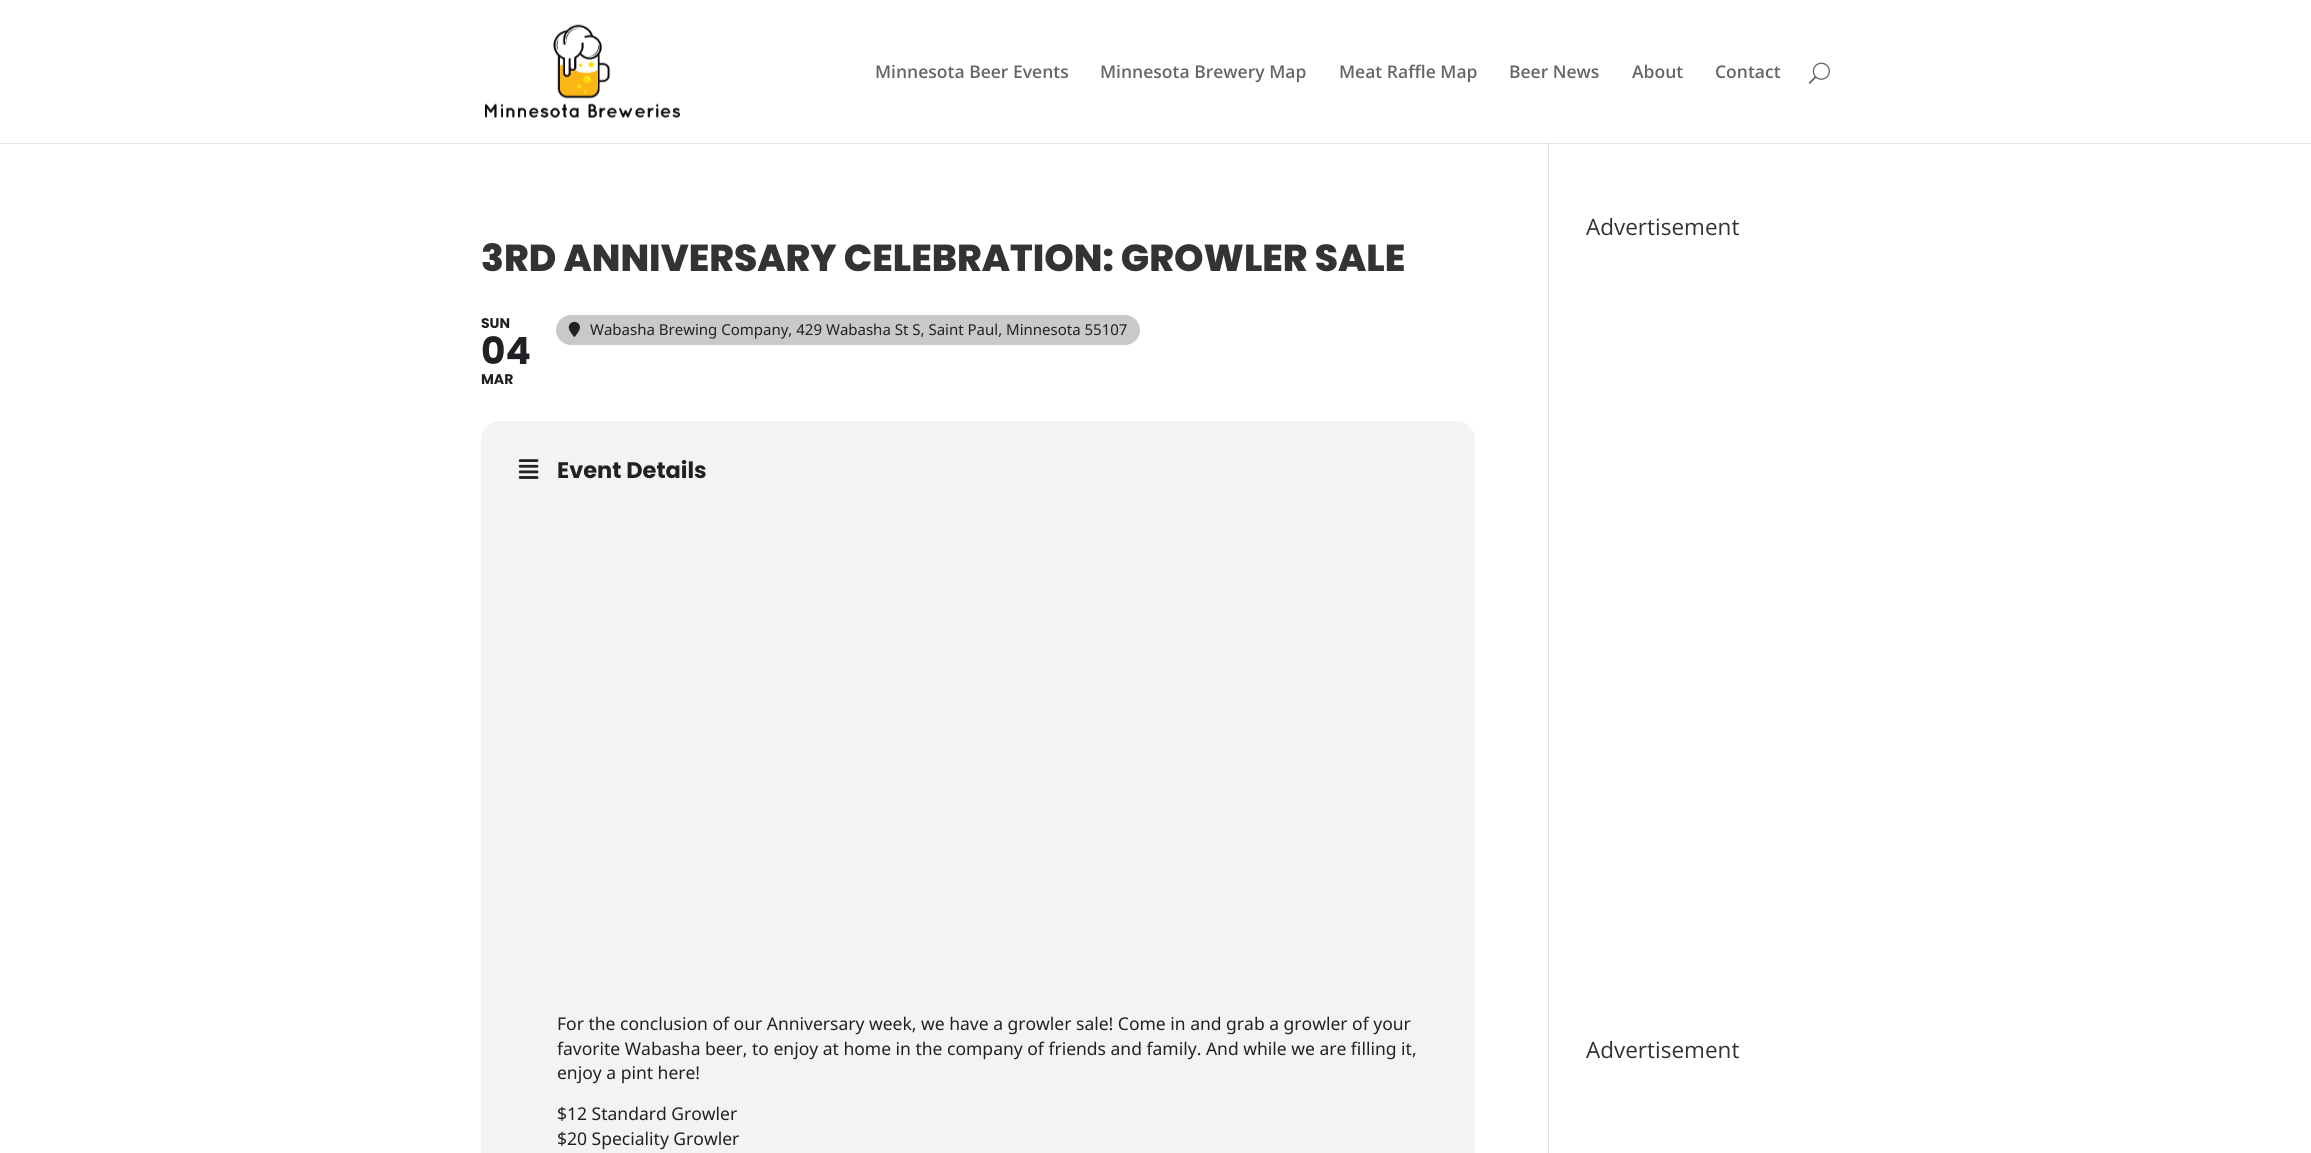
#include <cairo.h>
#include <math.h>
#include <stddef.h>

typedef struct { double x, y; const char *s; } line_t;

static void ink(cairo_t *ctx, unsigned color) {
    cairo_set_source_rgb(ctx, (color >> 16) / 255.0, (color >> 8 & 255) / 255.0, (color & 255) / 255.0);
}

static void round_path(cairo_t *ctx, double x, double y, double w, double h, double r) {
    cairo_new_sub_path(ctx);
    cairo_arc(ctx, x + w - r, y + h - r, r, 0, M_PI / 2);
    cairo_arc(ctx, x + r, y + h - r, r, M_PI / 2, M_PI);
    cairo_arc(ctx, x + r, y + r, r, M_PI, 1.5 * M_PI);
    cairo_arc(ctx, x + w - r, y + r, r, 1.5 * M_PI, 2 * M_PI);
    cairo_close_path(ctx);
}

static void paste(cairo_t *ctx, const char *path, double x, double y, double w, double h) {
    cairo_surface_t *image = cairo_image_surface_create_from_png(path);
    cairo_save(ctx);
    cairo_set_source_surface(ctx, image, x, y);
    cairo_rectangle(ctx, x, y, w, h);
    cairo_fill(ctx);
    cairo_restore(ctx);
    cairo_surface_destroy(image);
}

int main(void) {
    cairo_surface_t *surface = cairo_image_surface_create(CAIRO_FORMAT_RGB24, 2311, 1153);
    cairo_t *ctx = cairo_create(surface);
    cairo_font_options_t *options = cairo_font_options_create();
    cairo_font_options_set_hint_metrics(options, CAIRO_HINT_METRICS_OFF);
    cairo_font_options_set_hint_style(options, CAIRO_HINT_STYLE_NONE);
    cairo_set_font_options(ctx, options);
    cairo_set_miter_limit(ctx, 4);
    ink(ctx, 0xFFFFFF);
    cairo_paint(ctx);
    ink(ctx, 0xE6E6E6);
    cairo_rectangle(ctx, 0, 143, 2311, 1);
    cairo_fill(ctx);
    paste(ctx, "media/1.png", 485, 24, 195, 94);
    cairo_select_font_face(ctx, "Open Sans SemiBold", CAIRO_FONT_SLANT_NORMAL, CAIRO_FONT_WEIGHT_NORMAL);
    cairo_set_font_size(ctx, 17.5);
    ink(ctx, 0x666666);
    {
        static const line_t items[] = {
            {875, 78, "Minnesota Beer Events"},
            {1100, 78, "Minnesota Brewery Map"},
            {1339, 78, "Meat Raffle Map"},
            {1509, 78, "Beer News"},
            {1632, 78, "About"},
            {1715, 78, "Contact"},
        };
        for (size_t i = 0; i < sizeof items / sizeof *items; i++) {
            cairo_move_to(ctx, items[i].x, items[i].y);
            cairo_show_text(ctx, items[i].s);
        }
    }
    paste(ctx, "media/2.png", 1808, 62, 22, 22);
    ink(ctx, 0xE2E2E2);
    cairo_rectangle(ctx, 1548, 143, 1, 1010);
    cairo_fill(ctx);
    ink(ctx, 0xCBCBCB);
    cairo_rectangle(ctx, 1548, 143, 1, 1);
    cairo_fill(ctx);
    cairo_select_font_face(ctx, "Poppins ExtraBold", CAIRO_FONT_SLANT_NORMAL, CAIRO_FONT_WEIGHT_NORMAL);
    cairo_set_font_size(ctx, 37.5);
    ink(ctx, 0x333333);
    cairo_move_to(ctx, 481, 271);
    cairo_show_text(ctx, "3RD ANNIVERSARY CELEBRATION: GROWLER SALE");
    cairo_select_font_face(ctx, "Poppins", CAIRO_FONT_SLANT_NORMAL, CAIRO_FONT_WEIGHT_BOLD);
    cairo_set_font_size(ctx, 14);
    ink(ctx, 0x202124);
    cairo_move_to(ctx, 481, 328);
    cairo_show_text(ctx, "SUN");
    cairo_set_font_size(ctx, 37.5);
    cairo_move_to(ctx, 481, 364);
    cairo_show_text(ctx, "04");
    cairo_set_font_size(ctx, 14);
    cairo_move_to(ctx, 481, 384);
    cairo_show_text(ctx, "MAR");
    ink(ctx, 0xC9C9C9);
    round_path(ctx, 556, 315, 584, 30, 15);
    cairo_fill(ctx);
    paste(ctx, "media/3.png", 568, 321, 12, 16);
    cairo_select_font_face(ctx, "Noto Sans", CAIRO_FONT_SLANT_NORMAL, CAIRO_FONT_WEIGHT_NORMAL);
    cairo_set_font_size(ctx, 15);
    ink(ctx, 0x202124);
    cairo_move_to(ctx, 590, 335);
    cairo_show_text(ctx, "Wabasha Brewing Company, 429 Wabasha St S, Saint Paul, Minnesota 55107");
    ink(ctx, 0xF3F3F3);
    round_path(ctx, 481, 421, 994, 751, 19);
    cairo_fill(ctx);
    paste(ctx, "media/4.png", 518, 459, 21, 20);
    cairo_select_font_face(ctx, "Poppins", CAIRO_FONT_SLANT_NORMAL, CAIRO_FONT_WEIGHT_BOLD);
    cairo_set_font_size(ctx, 22.5);
    ink(ctx, 0x202124);
    cairo_move_to(ctx, 557, 478);
    cairo_show_text(ctx, "Event Details");
    cairo_select_font_face(ctx, "Noto Sans", CAIRO_FONT_SLANT_NORMAL, CAIRO_FONT_WEIGHT_NORMAL);
    cairo_set_font_size(ctx, 17.5);
    {
        static const line_t items[] = {
            {557, 1030, "For the conclusion of our Anniversary week, we have a growler sale! Come in and grab a growler of your"},
            {557, 1055, "favorite Wabasha beer, to enjoy at home in the company of friends and family. And while we are filling it,"},
            {557, 1079, "enjoy a pint here!"},
            {557, 1120, "$12 Standard Growler"},
            {557, 1145, "$20 Speciality Growler"},
        };
        for (size_t i = 0; i < sizeof items / sizeof *items; i++) {
            cairo_move_to(ctx, items[i].x, items[i].y);
            cairo_show_text(ctx, items[i].s);
        }
    }
    cairo_select_font_face(ctx, "Open Sans", CAIRO_FONT_SLANT_NORMAL, CAIRO_FONT_WEIGHT_NORMAL);
    cairo_set_font_size(ctx, 22.5);
    ink(ctx, 0x333333);
    cairo_move_to(ctx, 1586, 235);
    cairo_show_text(ctx, "Advertisement");
    cairo_move_to(ctx, 1586, 1058);
    cairo_show_text(ctx, "Advertisement");
    cairo_surface_write_to_png(surface, "image.png");
    cairo_font_options_destroy(options);
    cairo_destroy(ctx);
    cairo_surface_destroy(surface);
    return 0;
}
